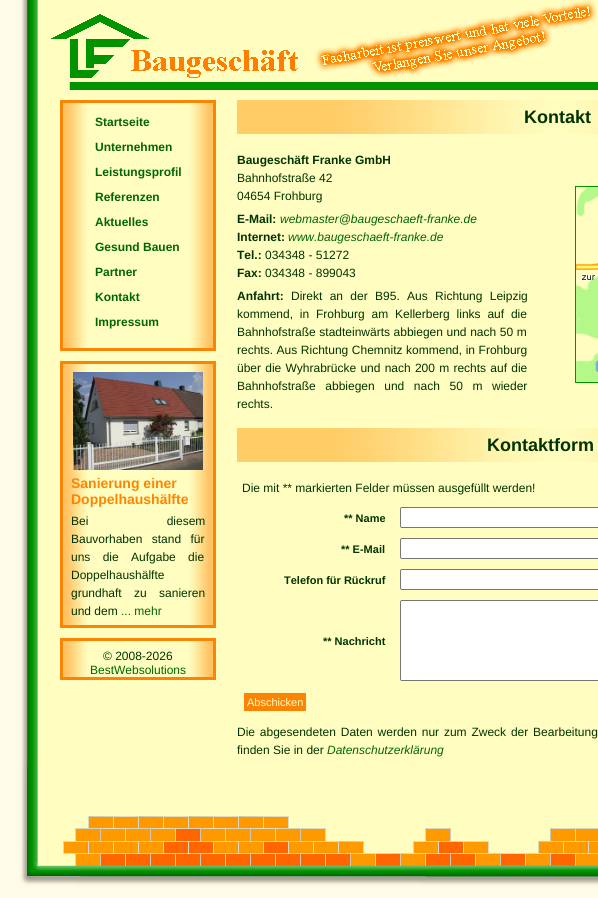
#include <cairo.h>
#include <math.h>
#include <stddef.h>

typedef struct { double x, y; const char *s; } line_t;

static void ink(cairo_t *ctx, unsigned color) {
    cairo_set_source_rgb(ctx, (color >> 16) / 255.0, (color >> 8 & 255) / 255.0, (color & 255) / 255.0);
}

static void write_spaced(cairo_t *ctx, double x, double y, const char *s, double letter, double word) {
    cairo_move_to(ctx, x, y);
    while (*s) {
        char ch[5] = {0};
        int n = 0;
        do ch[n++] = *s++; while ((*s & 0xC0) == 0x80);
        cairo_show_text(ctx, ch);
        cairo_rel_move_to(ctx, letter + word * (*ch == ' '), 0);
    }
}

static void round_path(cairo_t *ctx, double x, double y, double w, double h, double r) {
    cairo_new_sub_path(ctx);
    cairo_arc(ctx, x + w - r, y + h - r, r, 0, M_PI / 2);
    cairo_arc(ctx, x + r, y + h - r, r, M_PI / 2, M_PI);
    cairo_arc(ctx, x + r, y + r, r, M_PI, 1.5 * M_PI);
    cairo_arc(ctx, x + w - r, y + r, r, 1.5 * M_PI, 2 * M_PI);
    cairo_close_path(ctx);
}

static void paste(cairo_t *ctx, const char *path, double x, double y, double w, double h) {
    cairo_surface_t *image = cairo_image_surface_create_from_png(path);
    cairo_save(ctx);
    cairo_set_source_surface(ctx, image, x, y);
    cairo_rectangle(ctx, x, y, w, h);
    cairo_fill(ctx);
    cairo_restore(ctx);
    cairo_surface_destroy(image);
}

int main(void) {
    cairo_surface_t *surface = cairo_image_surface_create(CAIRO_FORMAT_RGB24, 598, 898);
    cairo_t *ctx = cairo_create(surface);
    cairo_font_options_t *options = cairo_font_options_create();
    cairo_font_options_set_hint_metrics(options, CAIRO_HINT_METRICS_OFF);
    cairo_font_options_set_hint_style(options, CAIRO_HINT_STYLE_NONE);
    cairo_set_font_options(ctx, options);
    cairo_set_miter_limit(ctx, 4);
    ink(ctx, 0xFFFBE8);
    cairo_paint(ctx);
    paste(ctx, "media/1.png", 0, 0, 598, 764);
    paste(ctx, "media/2.png", 51, 0, 547, 90);
    paste(ctx, "media/3.png", 63, 103, 150, 245);
    cairo_rectangle(ctx, 61.5, 101.5, 153, 248);
    ink(ctx, 0xFC8404);
    cairo_set_line_width(ctx, 3);
    cairo_stroke(ctx);
    cairo_select_font_face(ctx, "Liberation Sans", CAIRO_FONT_SLANT_NORMAL, CAIRO_FONT_WEIGHT_BOLD);
    cairo_set_font_size(ctx, 12);
    ink(ctx, 0x006600);
    {
        static const line_t items[] = {
            {95, 126, "Startseite"},
            {95, 151, "Unternehmen"},
            {95, 176, "Leistungsprofil"},
            {95, 201, "Referenzen"},
            {95, 226, "Aktuelles"},
            {95, 251, "Gesund Bauen"},
            {95, 276, "Partner"},
            {95, 301, "Kontakt"},
            {95, 326, "Impressum"},
        };
        for (size_t i = 0; i < sizeof items / sizeof *items; i++) {
            cairo_move_to(ctx, items[i].x, items[i].y);
            cairo_show_text(ctx, items[i].s);
        }
    }
    paste(ctx, "media/4.png", 63, 364, 150, 261);
    cairo_rectangle(ctx, 61.5, 362.5, 153, 264);
    ink(ctx, 0xFC8404);
    cairo_stroke(ctx);
    paste(ctx, "media/5.png", 73, 372, 130, 98);
    cairo_set_font_size(ctx, 14);
    ink(ctx, 0xFF8400);
    cairo_move_to(ctx, 71, 488);
    cairo_show_text(ctx, "Sanierung einer");
    cairo_move_to(ctx, 71, 504);
    cairo_show_text(ctx, "Doppelhaushälfte");
    cairo_select_font_face(ctx, "Liberation Sans", CAIRO_FONT_SLANT_NORMAL, CAIRO_FONT_WEIGHT_NORMAL);
    cairo_set_font_size(ctx, 12);
    ink(ctx, 0x003300);
    write_spaced(ctx, 71, 525, "Bei diesem", 0, 75);
    write_spaced(ctx, 71, 543, "Bauvorhaben stand für", 0, 6);
    write_spaced(ctx, 71, 561, "uns die Aufgabe die", 0, 9);
    cairo_move_to(ctx, 71, 579);
    cairo_show_text(ctx, "Doppelhaushälfte");
    write_spaced(ctx, 71, 597, "grundhaft zu sanieren", 0, 9);
    cairo_move_to(ctx, 71, 615);
    cairo_show_text(ctx, "und dem");
    ink(ctx, 0x006600);
    cairo_move_to(ctx, 121, 615);
    cairo_show_text(ctx, "... mehr");
    paste(ctx, "media/6.png", 63, 641, 150, 36);
    cairo_rectangle(ctx, 61.5, 639.5, 153, 39);
    ink(ctx, 0xFC8404);
    cairo_stroke(ctx);
    ink(ctx, 0x003300);
    cairo_move_to(ctx, 103, 660);
    cairo_show_text(ctx, "© 2008-2026");
    ink(ctx, 0x006600);
    cairo_move_to(ctx, 90, 674);
    cairo_show_text(ctx, "BestWebsolutions");
    paste(ctx, "media/7.png", 237, 100, 361, 34);
    cairo_select_font_face(ctx, "Liberation Sans", CAIRO_FONT_SLANT_NORMAL, CAIRO_FONT_WEIGHT_BOLD);
    cairo_set_font_size(ctx, 18);
    ink(ctx, 0x003300);
    cairo_move_to(ctx, 524, 123);
    cairo_show_text(ctx, "Kontakt");
    cairo_set_font_size(ctx, 12);
    cairo_move_to(ctx, 237, 164);
    cairo_show_text(ctx, "Baugeschäft Franke GmbH");
    cairo_select_font_face(ctx, "Liberation Sans", CAIRO_FONT_SLANT_NORMAL, CAIRO_FONT_WEIGHT_NORMAL);
    cairo_move_to(ctx, 237, 182);
    cairo_show_text(ctx, "Bahnhofstraße 42");
    cairo_move_to(ctx, 237, 200);
    cairo_show_text(ctx, "04654 Frohburg");
    cairo_select_font_face(ctx, "Liberation Sans", CAIRO_FONT_SLANT_NORMAL, CAIRO_FONT_WEIGHT_BOLD);
    cairo_move_to(ctx, 237, 223);
    cairo_show_text(ctx, "E-Mail:");
    cairo_select_font_face(ctx, "Liberation Sans", CAIRO_FONT_SLANT_ITALIC, CAIRO_FONT_WEIGHT_NORMAL);
    ink(ctx, 0x006600);
    cairo_move_to(ctx, 280, 223);
    cairo_show_text(ctx, "webmaster@baugeschaeft-franke.de");
    cairo_select_font_face(ctx, "Liberation Sans", CAIRO_FONT_SLANT_NORMAL, CAIRO_FONT_WEIGHT_BOLD);
    ink(ctx, 0x003300);
    cairo_move_to(ctx, 237, 241);
    cairo_show_text(ctx, "Internet:");
    cairo_select_font_face(ctx, "Liberation Sans", CAIRO_FONT_SLANT_ITALIC, CAIRO_FONT_WEIGHT_NORMAL);
    ink(ctx, 0x006600);
    cairo_move_to(ctx, 288, 241);
    cairo_show_text(ctx, "www.baugeschaeft-franke.de");
    cairo_select_font_face(ctx, "Liberation Sans", CAIRO_FONT_SLANT_NORMAL, CAIRO_FONT_WEIGHT_BOLD);
    ink(ctx, 0x003300);
    cairo_move_to(ctx, 237, 259);
    cairo_show_text(ctx, "Tel.:");
    cairo_select_font_face(ctx, "Liberation Sans", CAIRO_FONT_SLANT_NORMAL, CAIRO_FONT_WEIGHT_NORMAL);
    cairo_move_to(ctx, 265, 259);
    cairo_show_text(ctx, "034348 - 51272");
    cairo_select_font_face(ctx, "Liberation Sans", CAIRO_FONT_SLANT_NORMAL, CAIRO_FONT_WEIGHT_BOLD);
    cairo_move_to(ctx, 237, 277);
    cairo_show_text(ctx, "Fax:");
    cairo_select_font_face(ctx, "Liberation Sans", CAIRO_FONT_SLANT_NORMAL, CAIRO_FONT_WEIGHT_NORMAL);
    cairo_move_to(ctx, 265, 277);
    cairo_show_text(ctx, "034348 - 899043");
    cairo_select_font_face(ctx, "Liberation Sans", CAIRO_FONT_SLANT_NORMAL, CAIRO_FONT_WEIGHT_BOLD);
    cairo_move_to(ctx, 237, 300);
    cairo_show_text(ctx, "Anfahrt:");
    cairo_select_font_face(ctx, "Liberation Sans", CAIRO_FONT_SLANT_NORMAL, CAIRO_FONT_WEIGHT_NORMAL);
    write_spaced(ctx, 291, 300, "Direkt an der B95. Aus Richtung Leipzig", 0, 4);
    write_spaced(ctx, 237, 318, "kommend, in Frohburg am Kellerberg links auf die", 0, 3.5);
    write_spaced(ctx, 237, 336, "Bahnhofstraße stadteinwärts abbiegen und nach 50 m", 0, 0.25);
    write_spaced(ctx, 237, 354, "rechts. Aus Richtung Chemnitz kommend, in Frohburg", 0, 0.25);
    write_spaced(ctx, 237, 372, "über die Wyhrabrücke und nach 200 m rechts auf die", 0, 0.9);
    write_spaced(ctx, 237, 390, "Bahnhofstraße abbiegen und nach 50 m wieder", 0, 6.25);
    cairo_move_to(ctx, 237, 408);
    cairo_show_text(ctx, "rechts.");
    cairo_rectangle(ctx, 575.5, 186.5, 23, 196);
    ink(ctx, 0x009400);
    cairo_set_line_width(ctx, 1);
    cairo_stroke(ctx);
    paste(ctx, "media/8.png", 576, 187, 22, 195);
    paste(ctx, "media/7.png", 237, 428, 361, 34);
    cairo_select_font_face(ctx, "Liberation Sans", CAIRO_FONT_SLANT_NORMAL, CAIRO_FONT_WEIGHT_BOLD);
    cairo_set_font_size(ctx, 18);
    ink(ctx, 0x003300);
    cairo_move_to(ctx, 487, 451);
    cairo_show_text(ctx, "Kontaktform");
    cairo_select_font_face(ctx, "Liberation Sans", CAIRO_FONT_SLANT_NORMAL, CAIRO_FONT_WEIGHT_NORMAL);
    cairo_set_font_size(ctx, 12);
    cairo_move_to(ctx, 242, 492);
    cairo_show_text(ctx, "Die mit ** markierten Felder müssen ausgefüllt werden!");
    cairo_select_font_face(ctx, "Liberation Sans", CAIRO_FONT_SLANT_NORMAL, CAIRO_FONT_WEIGHT_BOLD);
    cairo_set_font_size(ctx, 11);
    cairo_move_to(ctx, 344, 522);
    cairo_show_text(ctx, "** Name");
    ink(ctx, 0xFFFFFF);
    round_path(ctx, 400.5, 507.5, 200, 20, 1.5);
    cairo_fill_preserve(ctx);
    ink(ctx, 0x767676);
    cairo_stroke(ctx);
    ink(ctx, 0x003300);
    cairo_move_to(ctx, 341, 553);
    cairo_show_text(ctx, "** E-Mail");
    ink(ctx, 0xFFFFFF);
    round_path(ctx, 400.5, 538.5, 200, 20, 1.5);
    cairo_fill_preserve(ctx);
    ink(ctx, 0x767676);
    cairo_stroke(ctx);
    ink(ctx, 0x003300);
    cairo_move_to(ctx, 284, 584);
    cairo_show_text(ctx, "Telefon für Rückruf");
    ink(ctx, 0xFFFFFF);
    round_path(ctx, 400.5, 569.5, 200, 20, 1.5);
    cairo_fill_preserve(ctx);
    ink(ctx, 0x767676);
    cairo_stroke(ctx);
    ink(ctx, 0x003300);
    cairo_move_to(ctx, 323, 645);
    cairo_show_text(ctx, "** Nachricht");
    ink(ctx, 0xFFFFFF);
    round_path(ctx, 400.5, 600.5, 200, 80, 1.5);
    cairo_fill_preserve(ctx);
    ink(ctx, 0x767676);
    cairo_stroke(ctx);
    ink(ctx, 0xFC8404);
    cairo_rectangle(ctx, 244, 693, 62, 18);
    cairo_fill(ctx);
    cairo_select_font_face(ctx, "Liberation Sans", CAIRO_FONT_SLANT_NORMAL, CAIRO_FONT_WEIGHT_NORMAL);
    ink(ctx, 0xFFFEC0);
    cairo_move_to(ctx, 247, 706);
    cairo_show_text(ctx, "Abschicken");
    cairo_set_font_size(ctx, 12);
    ink(ctx, 0x003300);
    write_spaced(ctx, 237, 736, "Die abgesendeten Daten werden nur zum Zweck der Bearbeitung", 0, 1.5);
    cairo_move_to(ctx, 237, 754);
    cairo_show_text(ctx, "finden Sie in der");
    cairo_select_font_face(ctx, "Liberation Sans", CAIRO_FONT_SLANT_ITALIC, CAIRO_FONT_WEIGHT_NORMAL);
    ink(ctx, 0x006600);
    cairo_move_to(ctx, 327, 754);
    cairo_show_text(ctx, "Datenschutzerklärung");
    ink(ctx, 0xFFFBEF);
    cairo_rectangle(ctx, 0, 893, 598, 1);
    cairo_fill(ctx);
    paste(ctx, "media/9.png", 0, 764, 598, 129);
    cairo_surface_write_to_png(surface, "image.png");
    cairo_font_options_destroy(options);
    cairo_destroy(ctx);
    cairo_surface_destroy(surface);
    return 0;
}
